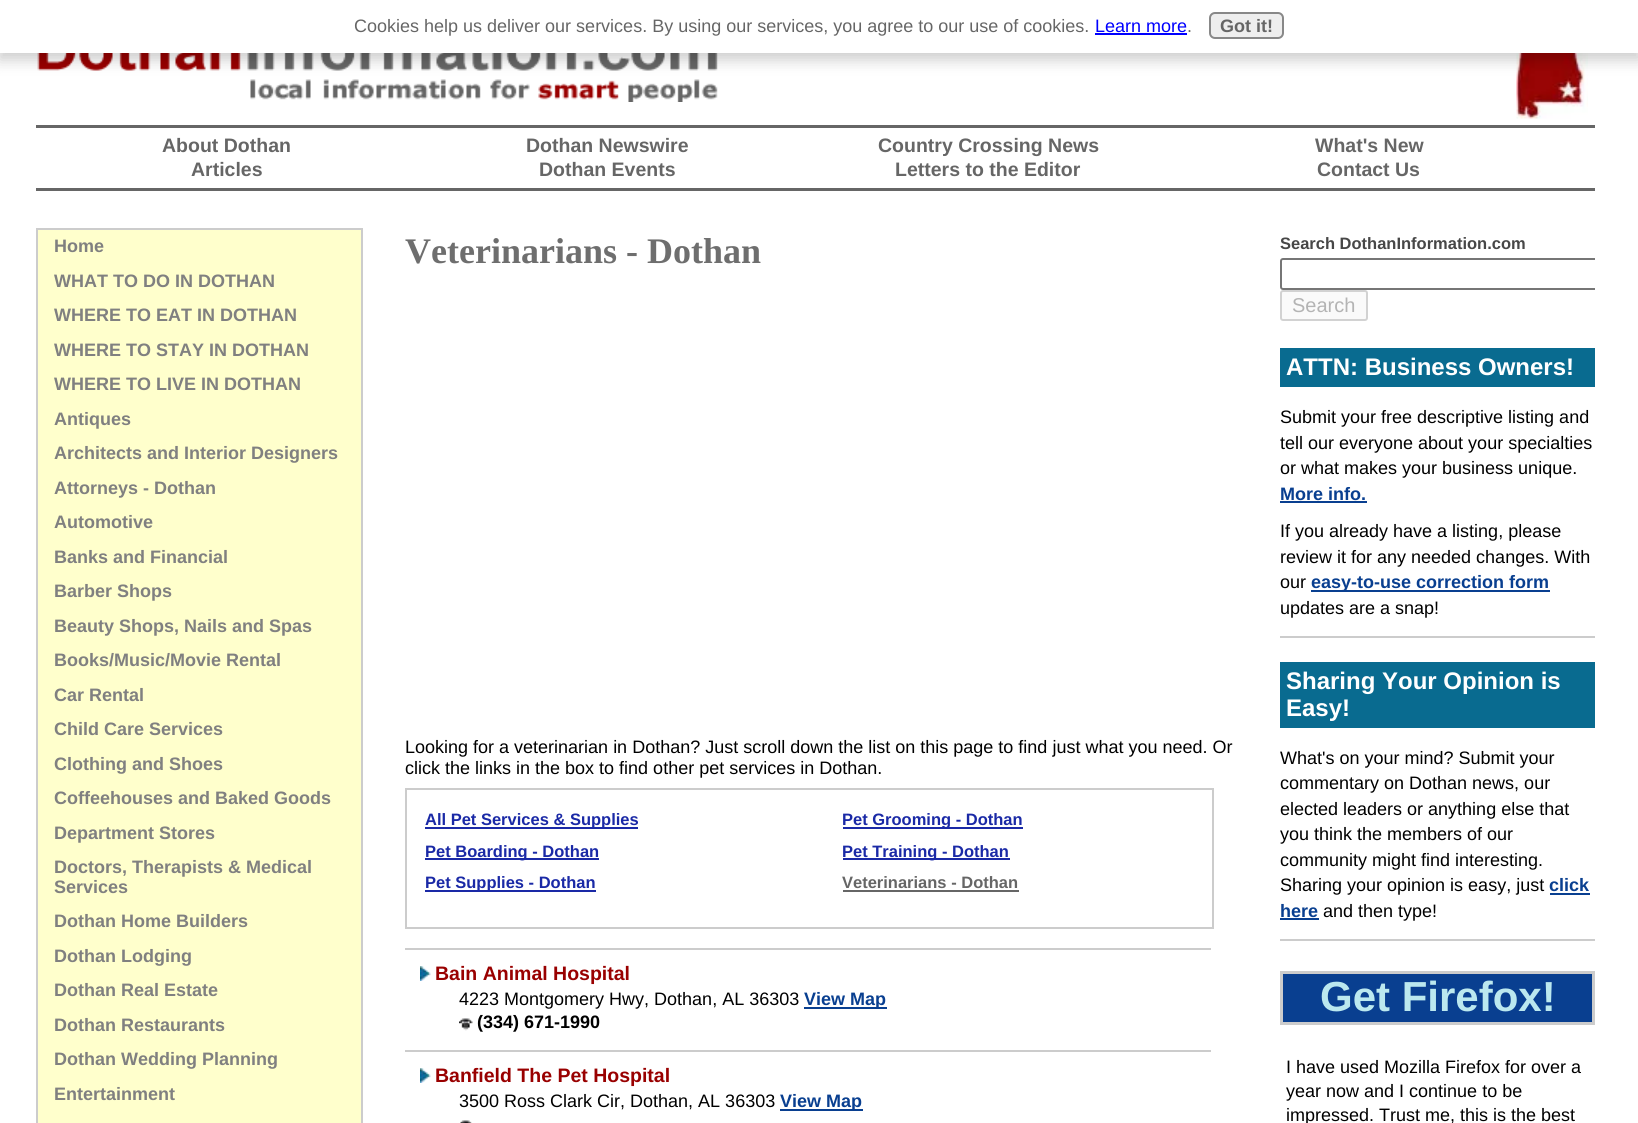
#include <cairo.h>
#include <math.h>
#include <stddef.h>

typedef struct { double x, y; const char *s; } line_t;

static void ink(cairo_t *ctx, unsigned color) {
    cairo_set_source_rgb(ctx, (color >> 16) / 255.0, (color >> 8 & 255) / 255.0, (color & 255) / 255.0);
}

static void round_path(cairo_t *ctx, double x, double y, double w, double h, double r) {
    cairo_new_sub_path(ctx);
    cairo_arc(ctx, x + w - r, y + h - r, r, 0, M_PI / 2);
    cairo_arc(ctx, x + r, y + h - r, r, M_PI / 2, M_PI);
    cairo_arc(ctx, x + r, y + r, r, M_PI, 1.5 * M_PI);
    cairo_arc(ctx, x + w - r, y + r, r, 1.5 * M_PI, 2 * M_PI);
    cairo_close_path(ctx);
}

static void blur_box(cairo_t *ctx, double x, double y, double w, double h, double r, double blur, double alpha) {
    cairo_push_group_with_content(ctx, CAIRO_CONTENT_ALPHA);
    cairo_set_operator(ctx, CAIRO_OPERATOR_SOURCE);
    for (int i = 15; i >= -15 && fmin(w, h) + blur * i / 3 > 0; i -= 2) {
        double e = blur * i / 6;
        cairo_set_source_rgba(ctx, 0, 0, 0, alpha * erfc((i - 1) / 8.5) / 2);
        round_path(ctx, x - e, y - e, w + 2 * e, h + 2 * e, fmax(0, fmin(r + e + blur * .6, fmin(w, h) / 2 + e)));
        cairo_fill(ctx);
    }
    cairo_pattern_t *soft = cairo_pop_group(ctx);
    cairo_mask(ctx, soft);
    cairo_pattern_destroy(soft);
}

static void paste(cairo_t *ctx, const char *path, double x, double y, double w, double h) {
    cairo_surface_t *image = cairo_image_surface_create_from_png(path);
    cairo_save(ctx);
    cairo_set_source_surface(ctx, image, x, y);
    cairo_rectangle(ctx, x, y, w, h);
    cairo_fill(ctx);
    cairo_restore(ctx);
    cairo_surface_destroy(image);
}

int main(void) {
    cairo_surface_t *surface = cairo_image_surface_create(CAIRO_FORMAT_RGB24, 1638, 1123);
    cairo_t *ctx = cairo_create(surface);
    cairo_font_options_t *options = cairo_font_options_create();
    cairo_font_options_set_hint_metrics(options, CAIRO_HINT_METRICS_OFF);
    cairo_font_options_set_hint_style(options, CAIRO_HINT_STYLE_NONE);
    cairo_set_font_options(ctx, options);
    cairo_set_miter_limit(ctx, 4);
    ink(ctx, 0xFFFFFF);
    cairo_paint(ctx);
    paste(ctx, "media/1.png", 37, 53, 681, 49);
    paste(ctx, "media/2.png", 1516, 53, 72, 66);
    ink(ctx, 0x000000);
    blur_box(ctx, -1, 5, 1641, 55, 0, 7.5, 0.2);
    ink(ctx, 0xFFFFFF);
    cairo_rectangle(ctx, 0, 0, 1638, 53);
    cairo_fill(ctx);
    cairo_select_font_face(ctx, "Liberation Sans", CAIRO_FONT_SLANT_NORMAL, CAIRO_FONT_WEIGHT_NORMAL);
    cairo_set_font_size(ctx, 18);
    ink(ctx, 0x666666);
    cairo_move_to(ctx, 354, 32);
    cairo_show_text(ctx, "Cookies help us deliver our services. By using our services, you agree to our use of cookies.");
    ink(ctx, 0x0000FF);
    cairo_move_to(ctx, 1095, 32);
    cairo_show_text(ctx, "Learn more");
    cairo_rectangle(ctx, 1095, 33, 92, 2);
    cairo_fill(ctx);
    ink(ctx, 0x666666);
    cairo_move_to(ctx, 1187, 32);
    cairo_show_text(ctx, ".");
    ink(ctx, 0xEEEEEE);
    round_path(ctx, 1210, 13, 73, 25, 5);
    cairo_fill_preserve(ctx);
    ink(ctx, 0x888888);
    cairo_stroke(ctx);
    cairo_select_font_face(ctx, "Liberation Sans", CAIRO_FONT_SLANT_NORMAL, CAIRO_FONT_WEIGHT_BOLD);
    ink(ctx, 0x666666);
    cairo_move_to(ctx, 1220, 32);
    cairo_show_text(ctx, "Got it!");
    cairo_rectangle(ctx, 36, 125, 1559, 3);
    cairo_fill(ctx);
    cairo_rectangle(ctx, 36, 188, 1559, 3);
    cairo_fill(ctx);
    cairo_set_font_size(ctx, 19.5);
    {
        static const line_t items[] = {
            {162, 152, "About Dothan"},
            {191, 176, "Articles"},
            {526, 152, "Dothan Newswire"},
            {539, 176, "Dothan Events"},
            {878, 152, "Country Crossing News"},
            {895, 176, "Letters to the Editor"},
            {1315, 152, "What's New"},
            {1317, 176, "Contact Us"},
        };
        for (size_t i = 0; i < sizeof items / sizeof *items; i++) {
            cairo_move_to(ctx, items[i].x, items[i].y);
            cairo_show_text(ctx, items[i].s);
        }
    }
    ink(ctx, 0xFFFFCC);
    cairo_rectangle(ctx, 37, 229, 325, 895);
    cairo_fill_preserve(ctx);
    ink(ctx, 0xCCCCCC);
    cairo_stroke(ctx);
    cairo_set_font_size(ctx, 18);
    ink(ctx, 0x808080);
    {
        static const line_t items[] = {
            {54, 252, "Home"},
            {54, 287, "WHAT TO DO IN DOTHAN"},
            {54, 321, "WHERE TO EAT IN DOTHAN"},
            {54, 356, "WHERE TO STAY IN DOTHAN"},
            {54, 390, "WHERE TO LIVE IN DOTHAN"},
            {54, 425, "Antiques"},
            {54, 459, "Architects and Interior Designers"},
            {54, 494, "Attorneys - Dothan"},
            {54, 528, "Automotive"},
            {54, 563, "Banks and Financial"},
            {54, 597, "Barber Shops"},
            {54, 632, "Beauty Shops, Nails and Spas"},
            {54, 666, "Books/Music/Movie Rental"},
            {54, 701, "Car Rental"},
            {54, 735, "Child Care Services"},
            {54, 770, "Clothing and Shoes"},
            {54, 804, "Coffeehouses and Baked Goods"},
            {54, 839, "Department Stores"},
            {54, 873, "Doctors, Therapists & Medical"},
            {54, 893, "Services"},
            {54, 927, "Dothan Home Builders"},
            {54, 962, "Dothan Lodging"},
            {54, 996, "Dothan Real Estate"},
            {54, 1031, "Dothan Restaurants"},
            {54, 1065, "Dothan Wedding Planning"},
            {54, 1100, "Entertainment"},
        };
        for (size_t i = 0; i < sizeof items / sizeof *items; i++) {
            cairo_move_to(ctx, items[i].x, items[i].y);
            cairo_show_text(ctx, items[i].s);
        }
    }
    cairo_select_font_face(ctx, "Liberation Serif", CAIRO_FONT_SLANT_NORMAL, CAIRO_FONT_WEIGHT_BOLD);
    cairo_set_font_size(ctx, 36);
    ink(ctx, 0x6E6E6E);
    cairo_move_to(ctx, 405, 263);
    cairo_show_text(ctx, "Veterinarians - Dothan");
    cairo_select_font_face(ctx, "Liberation Sans", CAIRO_FONT_SLANT_NORMAL, CAIRO_FONT_WEIGHT_NORMAL);
    cairo_set_font_size(ctx, 18);
    ink(ctx, 0x000000);
    cairo_move_to(ctx, 405, 753);
    cairo_show_text(ctx, "Looking for a veterinarian in Dothan? Just scroll down the list on this page to find just what you need. Or");
    cairo_move_to(ctx, 405, 774);
    cairo_show_text(ctx, "click the links in the box to find other pet services in Dothan.");
    cairo_rectangle(ctx, 406, 789, 807, 139);
    ink(ctx, 0xCCCCCC);
    cairo_stroke(ctx);
    ink(ctx, 0x1A29A6);
    cairo_rectangle(ctx, 425, 827, 213, 2);
    cairo_fill(ctx);
    cairo_select_font_face(ctx, "Liberation Sans", CAIRO_FONT_SLANT_NORMAL, CAIRO_FONT_WEIGHT_BOLD);
    cairo_set_font_size(ctx, 16.5);
    cairo_move_to(ctx, 425, 825);
    cairo_show_text(ctx, "All Pet Services & Supplies");
    cairo_rectangle(ctx, 425, 858, 174, 2);
    cairo_fill(ctx);
    cairo_move_to(ctx, 425, 857);
    cairo_show_text(ctx, "Pet Boarding - Dothan");
    cairo_rectangle(ctx, 425, 890, 171, 2);
    cairo_fill(ctx);
    cairo_move_to(ctx, 425, 888);
    cairo_show_text(ctx, "Pet Supplies - Dothan");
    cairo_rectangle(ctx, 843, 827, 180, 2);
    cairo_fill(ctx);
    cairo_move_to(ctx, 842, 825);
    cairo_show_text(ctx, "Pet Grooming - Dothan");
    cairo_rectangle(ctx, 843, 858, 167, 2);
    cairo_fill(ctx);
    cairo_move_to(ctx, 842, 857);
    cairo_show_text(ctx, "Pet Training - Dothan");
    ink(ctx, 0x666666);
    cairo_move_to(ctx, 842, 888);
    cairo_show_text(ctx, "Veterinarians - Dothan");
    cairo_rectangle(ctx, 843, 890, 176, 2);
    cairo_fill(ctx);
    ink(ctx, 0xCCCCCC);
    cairo_rectangle(ctx, 405, 948, 806, 2);
    cairo_fill(ctx);
    paste(ctx, "media/3.png", 420, 966, 11, 15);
    cairo_set_font_size(ctx, 19.5);
    ink(ctx, 0x990000);
    cairo_move_to(ctx, 435, 980);
    cairo_show_text(ctx, "Bain Animal Hospital");
    cairo_select_font_face(ctx, "Liberation Sans", CAIRO_FONT_SLANT_NORMAL, CAIRO_FONT_WEIGHT_NORMAL);
    cairo_set_font_size(ctx, 18);
    ink(ctx, 0x000000);
    cairo_move_to(ctx, 459, 1005);
    cairo_show_text(ctx, "4223 Montgomery Hwy, Dothan, AL 36303");
    ink(ctx, 0x093F90);
    cairo_rectangle(ctx, 804, 1007, 83, 2);
    cairo_fill(ctx);
    cairo_select_font_face(ctx, "Liberation Sans", CAIRO_FONT_SLANT_NORMAL, CAIRO_FONT_WEIGHT_BOLD);
    cairo_move_to(ctx, 804, 1005);
    cairo_show_text(ctx, "View Map");
    paste(ctx, "media/4.png", 459, 1018, 14, 13);
    ink(ctx, 0x000000);
    cairo_move_to(ctx, 477, 1028);
    cairo_show_text(ctx, "(334) 671-1990");
    ink(ctx, 0xCCCCCC);
    cairo_rectangle(ctx, 405, 1050, 806, 2);
    cairo_fill(ctx);
    paste(ctx, "media/3.png", 420, 1068, 11, 15);
    cairo_set_font_size(ctx, 19.5);
    ink(ctx, 0x990000);
    cairo_move_to(ctx, 435, 1082);
    cairo_show_text(ctx, "Banfield The Pet Hospital");
    cairo_select_font_face(ctx, "Liberation Sans", CAIRO_FONT_SLANT_NORMAL, CAIRO_FONT_WEIGHT_NORMAL);
    cairo_set_font_size(ctx, 18);
    ink(ctx, 0x000000);
    cairo_move_to(ctx, 459, 1107);
    cairo_show_text(ctx, "3500 Ross Clark Cir, Dothan, AL 36303");
    ink(ctx, 0x093F90);
    cairo_rectangle(ctx, 780, 1109, 83, 2);
    cairo_fill(ctx);
    cairo_select_font_face(ctx, "Liberation Sans", CAIRO_FONT_SLANT_NORMAL, CAIRO_FONT_WEIGHT_BOLD);
    cairo_move_to(ctx, 780, 1107);
    cairo_show_text(ctx, "View Map");
    paste(ctx, "media/5.png", 460, 1120, 12, 3);
    cairo_set_font_size(ctx, 16.5);
    ink(ctx, 0x474747);
    cairo_move_to(ctx, 1280, 249);
    cairo_show_text(ctx, "Search DothanInformation.com");
    cairo_save(ctx);
    cairo_rectangle(ctx, 1280, 234, 315, 102);
    cairo_clip(ctx);
    round_path(ctx, 1281, 259, 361, 30, 2);
    ink(ctx, 0x767676);
    cairo_stroke(ctx);
    cairo_restore(ctx);
    ink(ctx, 0xFAFAFA);
    round_path(ctx, 1281, 291, 86, 29, 2);
    cairo_fill_preserve(ctx);
    ink(ctx, 0xD2D2D2);
    cairo_stroke(ctx);
    cairo_select_font_face(ctx, "Liberation Sans", CAIRO_FONT_SLANT_NORMAL, CAIRO_FONT_WEIGHT_NORMAL);
    cairo_set_font_size(ctx, 20);
    ink(ctx, 0xB4B4B4);
    cairo_move_to(ctx, 1292, 312);
    cairo_show_text(ctx, "Search");
    ink(ctx, 0xCCCCCC);
    cairo_rectangle(ctx, 1280, 636, 315, 2);
    cairo_fill(ctx);
    ink(ctx, 0x096B90);
    cairo_rectangle(ctx, 1280, 348, 315, 39);
    cairo_fill(ctx);
    cairo_select_font_face(ctx, "Liberation Sans", CAIRO_FONT_SLANT_NORMAL, CAIRO_FONT_WEIGHT_BOLD);
    cairo_set_font_size(ctx, 24);
    ink(ctx, 0xFFFFFF);
    cairo_move_to(ctx, 1286, 375);
    cairo_show_text(ctx, "ATTN: Business Owners!");
    cairo_select_font_face(ctx, "Liberation Sans", CAIRO_FONT_SLANT_NORMAL, CAIRO_FONT_WEIGHT_NORMAL);
    cairo_set_font_size(ctx, 18);
    ink(ctx, 0x000000);
    {
        static const line_t items[] = {
            {1280, 423, "Submit your free descriptive listing and"},
            {1280, 449, "tell our everyone about your specialties"},
            {1280, 474, "or what makes your business unique."},
        };
        for (size_t i = 0; i < sizeof items / sizeof *items; i++) {
            cairo_move_to(ctx, items[i].x, items[i].y);
            cairo_show_text(ctx, items[i].s);
        }
    }
    cairo_select_font_face(ctx, "Liberation Sans", CAIRO_FONT_SLANT_NORMAL, CAIRO_FONT_WEIGHT_BOLD);
    ink(ctx, 0x093F90);
    cairo_move_to(ctx, 1280, 500);
    cairo_show_text(ctx, "More info.");
    cairo_rectangle(ctx, 1280, 501, 87, 2);
    cairo_fill(ctx);
    cairo_select_font_face(ctx, "Liberation Sans", CAIRO_FONT_SLANT_NORMAL, CAIRO_FONT_WEIGHT_NORMAL);
    ink(ctx, 0x000000);
    {
        static const line_t items[] = {
            {1280, 537, "If you already have a listing, please"},
            {1280, 563, "review it for any needed changes. With"},
            {1280, 588, "our"},
        };
        for (size_t i = 0; i < sizeof items / sizeof *items; i++) {
            cairo_move_to(ctx, items[i].x, items[i].y);
            cairo_show_text(ctx, items[i].s);
        }
    }
    ink(ctx, 0x093F90);
    cairo_rectangle(ctx, 1311, 590, 239, 2);
    cairo_fill(ctx);
    cairo_select_font_face(ctx, "Liberation Sans", CAIRO_FONT_SLANT_NORMAL, CAIRO_FONT_WEIGHT_BOLD);
    cairo_move_to(ctx, 1311, 588);
    cairo_show_text(ctx, "easy-to-use correction form");
    cairo_select_font_face(ctx, "Liberation Sans", CAIRO_FONT_SLANT_NORMAL, CAIRO_FONT_WEIGHT_NORMAL);
    ink(ctx, 0x000000);
    cairo_move_to(ctx, 1280, 614);
    cairo_show_text(ctx, "updates are a snap!");
    ink(ctx, 0xCCCCCC);
    cairo_rectangle(ctx, 1280, 939, 315, 2);
    cairo_fill(ctx);
    ink(ctx, 0x096B90);
    cairo_rectangle(ctx, 1280, 662, 315, 66);
    cairo_fill(ctx);
    cairo_select_font_face(ctx, "Liberation Sans", CAIRO_FONT_SLANT_NORMAL, CAIRO_FONT_WEIGHT_BOLD);
    cairo_set_font_size(ctx, 24);
    ink(ctx, 0xFFFFFF);
    cairo_move_to(ctx, 1286, 689);
    cairo_show_text(ctx, "Sharing Your Opinion is");
    cairo_move_to(ctx, 1286, 716);
    cairo_show_text(ctx, "Easy!");
    cairo_select_font_face(ctx, "Liberation Sans", CAIRO_FONT_SLANT_NORMAL, CAIRO_FONT_WEIGHT_NORMAL);
    cairo_set_font_size(ctx, 18);
    ink(ctx, 0x000000);
    {
        static const line_t items[] = {
            {1280, 764, "What's on your mind? Submit your"},
            {1280, 789, "commentary on Dothan news, our"},
            {1280, 815, "elected leaders or anything else that"},
            {1280, 840, "you think the members of our"},
            {1280, 866, "community might find interesting."},
            {1280, 891, "Sharing your opinion is easy, just"},
        };
        for (size_t i = 0; i < sizeof items / sizeof *items; i++) {
            cairo_move_to(ctx, items[i].x, items[i].y);
            cairo_show_text(ctx, items[i].s);
        }
    }
    cairo_select_font_face(ctx, "Liberation Sans", CAIRO_FONT_SLANT_NORMAL, CAIRO_FONT_WEIGHT_BOLD);
    ink(ctx, 0x093F90);
    cairo_move_to(ctx, 1549, 891);
    cairo_show_text(ctx, "click");
    cairo_rectangle(ctx, 1550, 893, 40, 2);
    cairo_fill(ctx);
    cairo_move_to(ctx, 1280, 917);
    cairo_show_text(ctx, "here");
    cairo_rectangle(ctx, 1280, 918, 39, 2);
    cairo_fill(ctx);
    cairo_select_font_face(ctx, "Liberation Sans", CAIRO_FONT_SLANT_NORMAL, CAIRO_FONT_WEIGHT_NORMAL);
    ink(ctx, 0x000000);
    cairo_move_to(ctx, 1323, 917);
    cairo_show_text(ctx, "and then type!");
    ink(ctx, 0x093F90);
    cairo_rectangle(ctx, 1281.5, 972.5, 312, 51);
    cairo_fill_preserve(ctx);
    ink(ctx, 0xCCCCCC);
    cairo_set_line_width(ctx, 3);
    cairo_stroke(ctx);
    cairo_select_font_face(ctx, "Liberation Sans", CAIRO_FONT_SLANT_NORMAL, CAIRO_FONT_WEIGHT_BOLD);
    cairo_set_font_size(ctx, 42);
    ink(ctx, 0xBBE8EF);
    cairo_move_to(ctx, 1320, 1011);
    cairo_show_text(ctx, "Get Firefox!");
    cairo_select_font_face(ctx, "Liberation Sans", CAIRO_FONT_SLANT_NORMAL, CAIRO_FONT_WEIGHT_NORMAL);
    cairo_set_font_size(ctx, 18);
    ink(ctx, 0x000000);
    {
        static const line_t items[] = {
            {1286, 1073, "I have used Mozilla Firefox for over a"},
            {1286, 1097, "year now and I continue to be"},
            {1286, 1121, "impressed. Trust me, this is the best"},
        };
        for (size_t i = 0; i < sizeof items / sizeof *items; i++) {
            cairo_move_to(ctx, items[i].x, items[i].y);
            cairo_show_text(ctx, items[i].s);
        }
    }
    cairo_surface_write_to_png(surface, "image.png");
    cairo_font_options_destroy(options);
    cairo_destroy(ctx);
    cairo_surface_destroy(surface);
    return 0;
}
